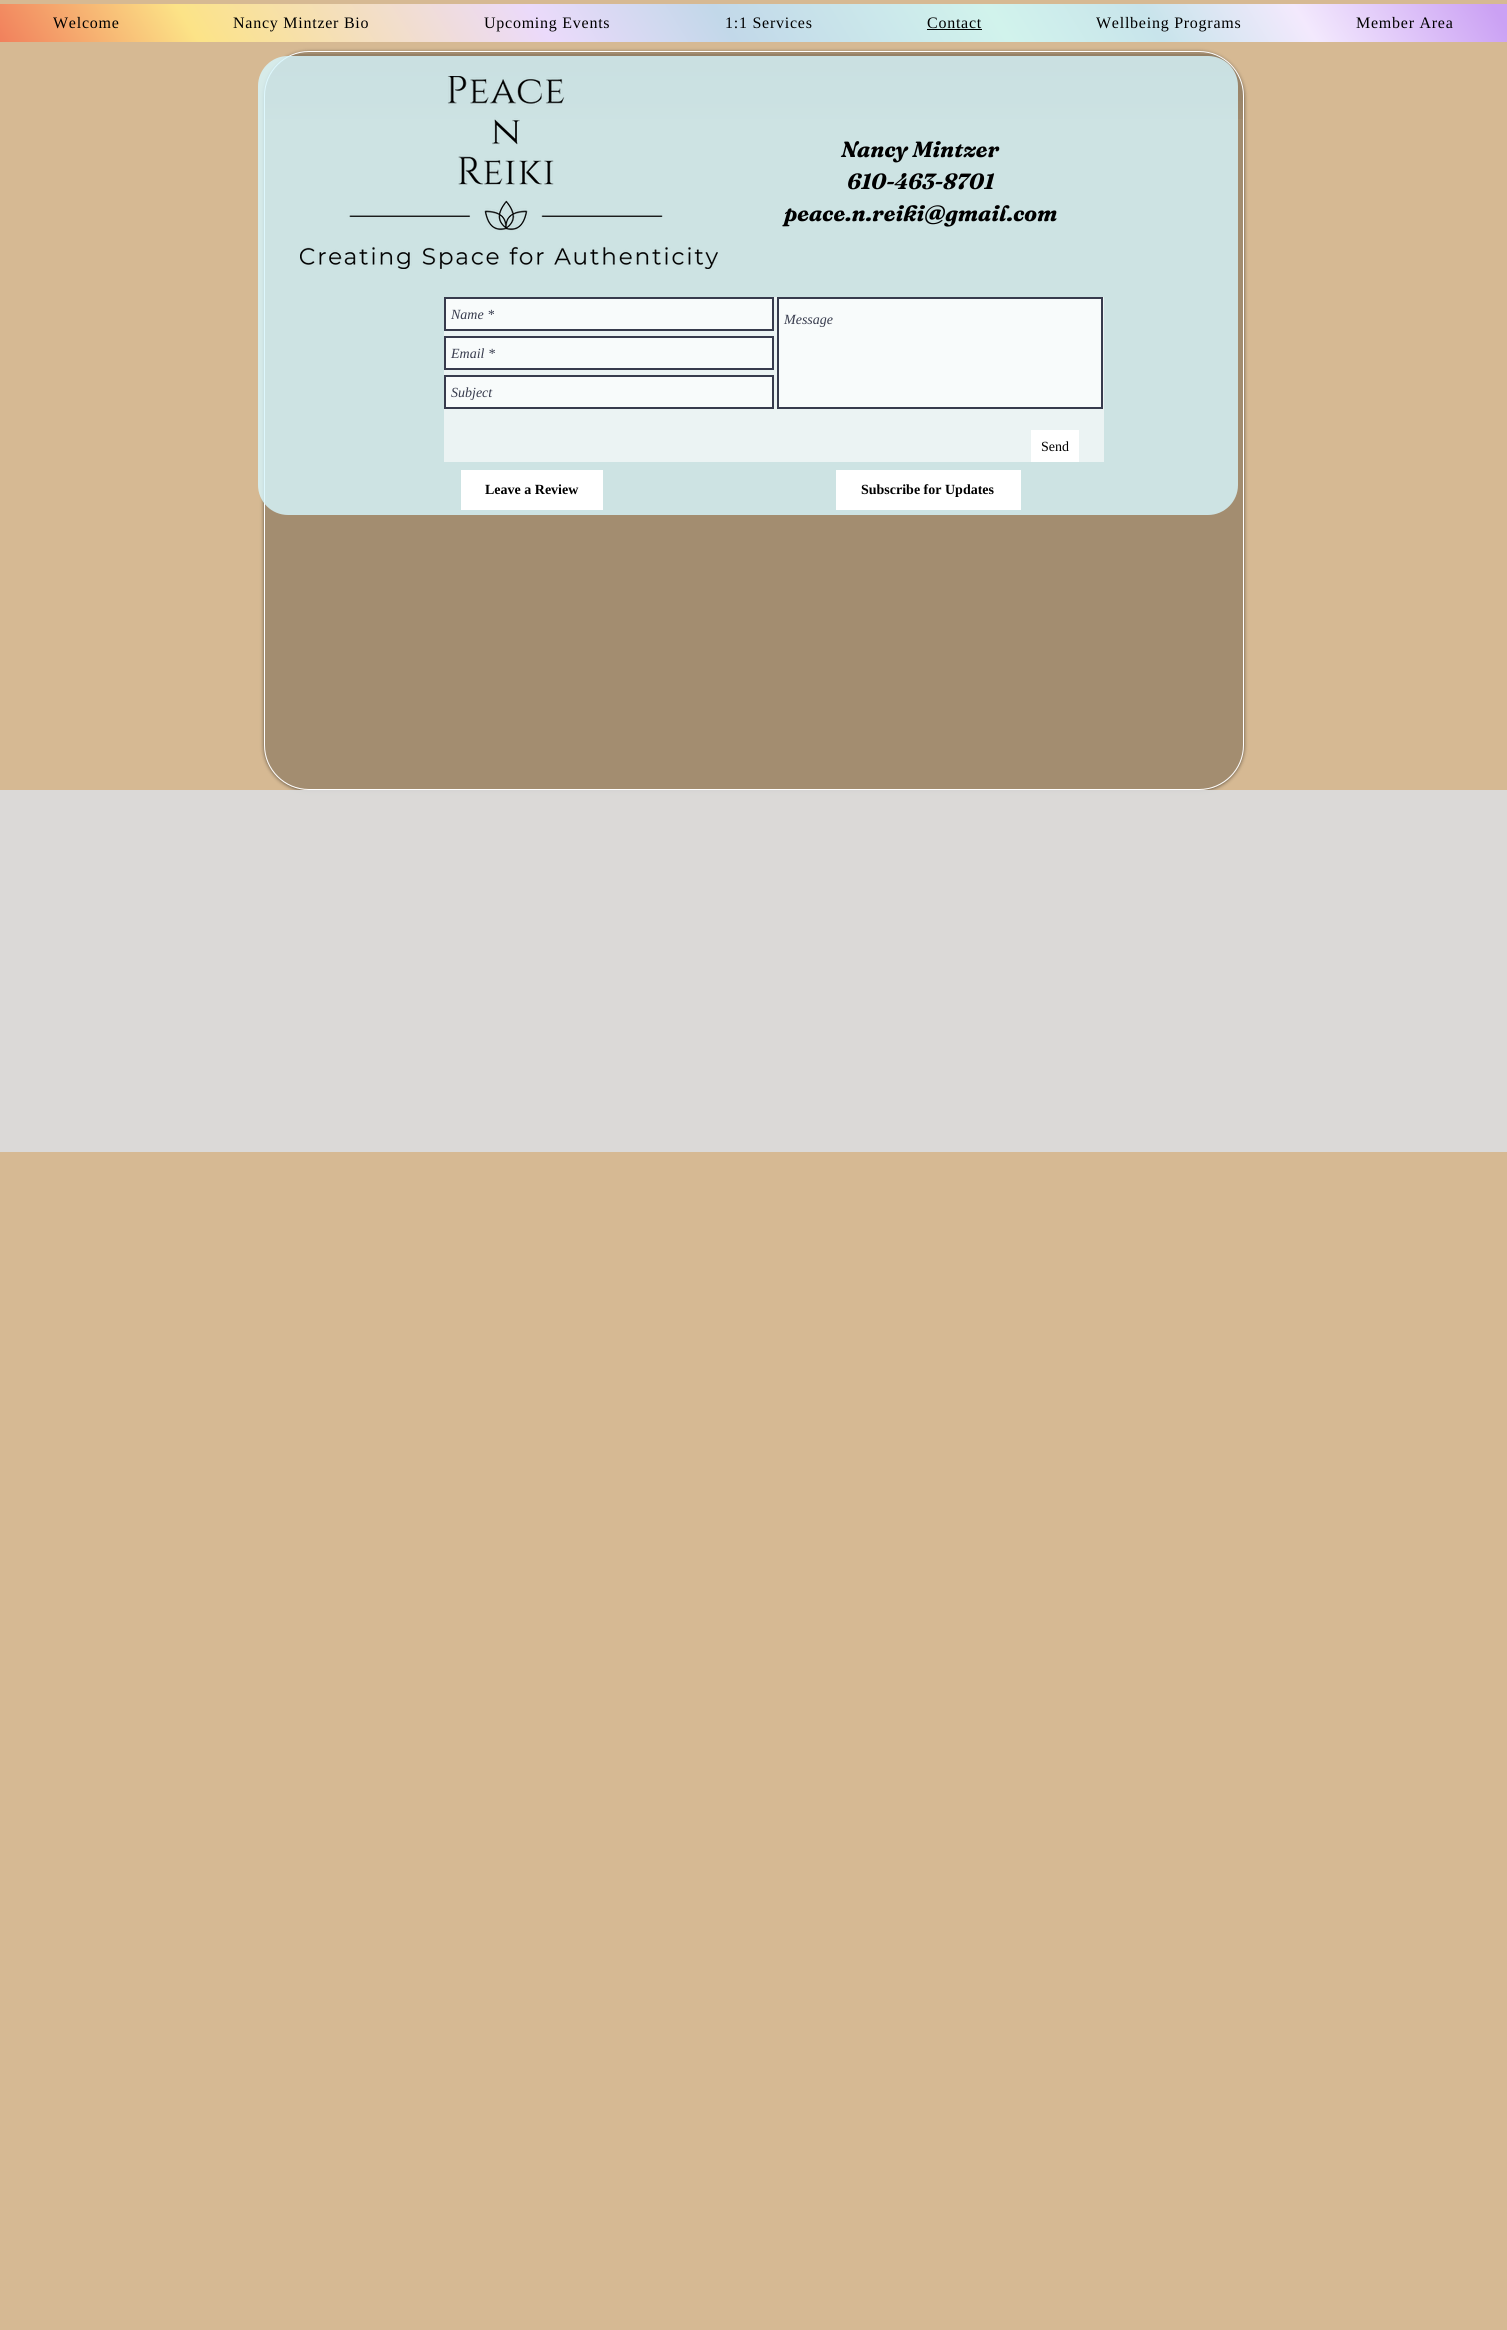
#include <cairo.h>
#include <math.h>
#include <stddef.h>

typedef struct { double x, y; const char *s; } line_t;

static void ink(cairo_t *ctx, unsigned color) {
    cairo_set_source_rgb(ctx, (color >> 16) / 255.0, (color >> 8 & 255) / 255.0, (color & 255) / 255.0);
}

static void write_spaced(cairo_t *ctx, double x, double y, const char *s, double letter, double word) {
    cairo_move_to(ctx, x, y);
    while (*s) {
        char ch[5] = {0};
        int n = 0;
        do ch[n++] = *s++; while ((*s & 0xC0) == 0x80);
        cairo_show_text(ctx, ch);
        cairo_rel_move_to(ctx, letter + word * (*ch == ' '), 0);
    }
}

static void round_path(cairo_t *ctx, double x, double y, double w, double h, double r) {
    cairo_new_sub_path(ctx);
    cairo_arc(ctx, x + w - r, y + h - r, r, 0, M_PI / 2);
    cairo_arc(ctx, x + r, y + h - r, r, M_PI / 2, M_PI);
    cairo_arc(ctx, x + r, y + r, r, M_PI, 1.5 * M_PI);
    cairo_arc(ctx, x + w - r, y + r, r, 1.5 * M_PI, 2 * M_PI);
    cairo_close_path(ctx);
}

static void blur_box(cairo_t *ctx, double x, double y, double w, double h, double r, double blur, double alpha) {
    cairo_push_group_with_content(ctx, CAIRO_CONTENT_ALPHA);
    cairo_set_operator(ctx, CAIRO_OPERATOR_SOURCE);
    for (int i = 15; i >= -15 && fmin(w, h) + blur * i / 3 > 0; i -= 2) {
        double e = blur * i / 6;
        cairo_set_source_rgba(ctx, 0, 0, 0, alpha * erfc((i - 1) / 8.5) / 2);
        round_path(ctx, x - e, y - e, w + 2 * e, h + 2 * e, fmax(0, fmin(r + e + blur * .6, fmin(w, h) / 2 + e)));
        cairo_fill(ctx);
    }
    cairo_pattern_t *soft = cairo_pop_group(ctx);
    cairo_mask(ctx, soft);
    cairo_pattern_destroy(soft);
}

static void paste(cairo_t *ctx, const char *path, double x, double y, double w, double h) {
    cairo_surface_t *image = cairo_image_surface_create_from_png(path);
    cairo_save(ctx);
    cairo_set_source_surface(ctx, image, x, y);
    cairo_rectangle(ctx, x, y, w, h);
    cairo_fill(ctx);
    cairo_restore(ctx);
    cairo_surface_destroy(image);
}

int main(void) {
    cairo_surface_t *surface = cairo_image_surface_create(CAIRO_FORMAT_RGB24, 1507, 2330);
    cairo_t *ctx = cairo_create(surface);
    cairo_font_options_t *options = cairo_font_options_create();
    cairo_font_options_set_hint_metrics(options, CAIRO_HINT_METRICS_OFF);
    cairo_font_options_set_hint_style(options, CAIRO_HINT_STYLE_NONE);
    cairo_set_font_options(ctx, options);
    cairo_set_miter_limit(ctx, 4);
    cairo_pattern_t *gradient;
    ink(ctx, 0xD6B993);
    cairo_paint(ctx);
    gradient = cairo_pattern_create_linear(203, 367, 1304, -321);
    cairo_pattern_add_color_stop_rgba(gradient, 0, 0.945, 0.502, 0.361, 1);
    cairo_pattern_add_color_stop_rgba(gradient, 0.13, 0.988, 0.89, 0.529, 1);
    cairo_pattern_add_color_stop_rgba(gradient, 0.36, 0.922, 0.855, 0.984, 1);
    cairo_pattern_add_color_stop_rgba(gradient, 0.48, 0.761, 0.847, 0.914, 1);
    cairo_pattern_add_color_stop_rgba(gradient, 0.66, 0.82, 0.953, 0.925, 1);
    cairo_pattern_add_color_stop_rgba(gradient, 0.76, 0.784, 0.894, 0.922, 1);
    cairo_pattern_add_color_stop_rgba(gradient, 0.86, 0.953, 0.914, 0.992, 1);
    cairo_pattern_add_color_stop_rgba(gradient, 0.99, 0.796, 0.631, 0.957, 1);
    cairo_set_source(ctx, gradient);
    cairo_pattern_destroy(gradient);
    cairo_rectangle(ctx, 0, 4, 1507, 38);
    cairo_fill(ctx);
    cairo_select_font_face(ctx, "Liberation Serif", CAIRO_FONT_SLANT_NORMAL, CAIRO_FONT_WEIGHT_NORMAL);
    cairo_set_font_size(ctx, 16);
    ink(ctx, 0x000000);
    {
        static const line_t items[] = {
            {53, 28, "Welcome"},
            {233, 28, "Nancy Mintzer Bio"},
            {484, 28, "Upcoming Events"},
            {725, 28, "1:1 Services"},
            {927, 28, "Contact"},
        };
        for (size_t i = 0; i < sizeof items / sizeof *items; i++) {
            write_spaced(ctx, items[i].x, items[i].y, items[i].s, 0.75, 0);
        }
    }
    cairo_rectangle(ctx, 927, 29, 55, 1);
    cairo_fill(ctx);
    write_spaced(ctx, 1096, 28, "Wellbeing Programs", 0.75, 0);
    write_spaced(ctx, 1356, 28, "Member Area", 0.75, 0);
    cairo_save(ctx);
    cairo_set_fill_rule(ctx, CAIRO_FILL_RULE_EVEN_ODD);
    cairo_new_path(ctx);
    cairo_move_to(ctx, 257, 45);
    cairo_line_to(ctx, 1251, 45);
    cairo_line_to(ctx, 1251, 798);
    cairo_line_to(ctx, 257, 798);
    cairo_close_path(ctx);
    cairo_move_to(ctx, 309, 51);
    cairo_line_to(ctx, 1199, 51);
    cairo_curve_to(ctx, 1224, 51, 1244, 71, 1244, 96);
    cairo_line_to(ctx, 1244, 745);
    cairo_curve_to(ctx, 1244, 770, 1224, 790, 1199, 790);
    cairo_line_to(ctx, 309, 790);
    cairo_curve_to(ctx, 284, 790, 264, 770, 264, 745);
    cairo_line_to(ctx, 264, 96);
    cairo_curve_to(ctx, 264, 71, 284, 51, 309, 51);
    cairo_close_path(ctx);
    cairo_clip(ctx);
    ink(ctx, 0x000000);
    blur_box(ctx, 264, 52, 980, 739, 45, 2, 0.6);
    cairo_restore(ctx);
    cairo_set_source_rgba(ctx, 0, 0, 0, 0.24);
    round_path(ctx, 264, 51, 980, 739, 45);
    cairo_fill(ctx);
    paste(ctx, "media/1.png", 264, 54, 980, 65);
    round_path(ctx, 264.5, 51.5, 979, 738, 44.5);
    ink(ctx, 0xFFFFFF);
    cairo_set_line_width(ctx, 1);
    cairo_stroke(ctx);
    cairo_set_source_rgba(ctx, 0.843, 0.969, 0.996, 0.81);
    round_path(ctx, 258, 56, 980, 459, 30);
    cairo_fill(ctx);
    cairo_select_font_face(ctx, "Fraunces", CAIRO_FONT_SLANT_ITALIC, CAIRO_FONT_WEIGHT_BOLD);
    cairo_set_font_size(ctx, 22);
    ink(ctx, 0x000000);
    {
        static const line_t items[] = {
            {841, 157, "Nancy Mintzer"},
            {847, 189, "610-463-8701"},
            {784, 221, "peace.n.reiki@gmail.com"},
        };
        for (size_t i = 0; i < sizeof items / sizeof *items; i++) {
            cairo_move_to(ctx, items[i].x, items[i].y);
            cairo_show_text(ctx, items[i].s);
        }
    }
    ink(ctx, 0xEBF3F3);
    cairo_rectangle(ctx, 444, 297, 660, 165);
    cairo_fill(ctx);
    ink(ctx, 0xF8FBFB);
    cairo_rectangle(ctx, 445, 298, 328, 32);
    cairo_fill_preserve(ctx);
    ink(ctx, 0x373B4D);
    cairo_set_line_width(ctx, 2);
    cairo_stroke(ctx);
    cairo_select_font_face(ctx, "Liberation Serif", CAIRO_FONT_SLANT_ITALIC, CAIRO_FONT_WEIGHT_NORMAL);
    cairo_set_font_size(ctx, 14);
    cairo_move_to(ctx, 451, 319);
    cairo_show_text(ctx, "Name *");
    ink(ctx, 0xF8FBFB);
    cairo_rectangle(ctx, 778, 298, 324, 110);
    cairo_fill_preserve(ctx);
    ink(ctx, 0x373B4D);
    cairo_stroke(ctx);
    cairo_move_to(ctx, 784, 324);
    cairo_show_text(ctx, "Message");
    ink(ctx, 0xF8FBFB);
    cairo_rectangle(ctx, 445, 337, 328, 32);
    cairo_fill_preserve(ctx);
    ink(ctx, 0x373B4D);
    cairo_stroke(ctx);
    cairo_move_to(ctx, 451, 358);
    cairo_show_text(ctx, "Email *");
    ink(ctx, 0xF8FBFB);
    cairo_rectangle(ctx, 445, 376, 328, 32);
    cairo_fill_preserve(ctx);
    ink(ctx, 0x373B4D);
    cairo_stroke(ctx);
    cairo_move_to(ctx, 451, 397);
    cairo_show_text(ctx, "Subject");
    ink(ctx, 0xFFFFFF);
    cairo_rectangle(ctx, 1031, 430, 48, 32);
    cairo_fill(ctx);
    cairo_select_font_face(ctx, "Liberation Serif", CAIRO_FONT_SLANT_NORMAL, CAIRO_FONT_WEIGHT_NORMAL);
    ink(ctx, 0x000000);
    cairo_move_to(ctx, 1041, 451);
    cairo_show_text(ctx, "Send");
    paste(ctx, "media/2.png", 300, 76, 418, 193);
    ink(ctx, 0xFFFFFF);
    cairo_rectangle(ctx, 461, 470, 142, 40);
    cairo_fill(ctx);
    cairo_select_font_face(ctx, "Liberation Serif", CAIRO_FONT_SLANT_NORMAL, CAIRO_FONT_WEIGHT_BOLD);
    ink(ctx, 0x000000);
    cairo_move_to(ctx, 485, 494);
    cairo_show_text(ctx, "Leave a Review");
    ink(ctx, 0xFFFFFF);
    cairo_rectangle(ctx, 836, 470, 185, 40);
    cairo_fill(ctx);
    ink(ctx, 0x000000);
    cairo_move_to(ctx, 861, 494);
    cairo_show_text(ctx, "Subscribe for Updates");
    cairo_set_source_rgba(ctx, 0.859, 0.859, 0.859, 0.94);
    cairo_rectangle(ctx, 0, 790, 1507, 362);
    cairo_fill(ctx);
    cairo_surface_write_to_png(surface, "image.png");
    cairo_font_options_destroy(options);
    cairo_destroy(ctx);
    cairo_surface_destroy(surface);
    return 0;
}
